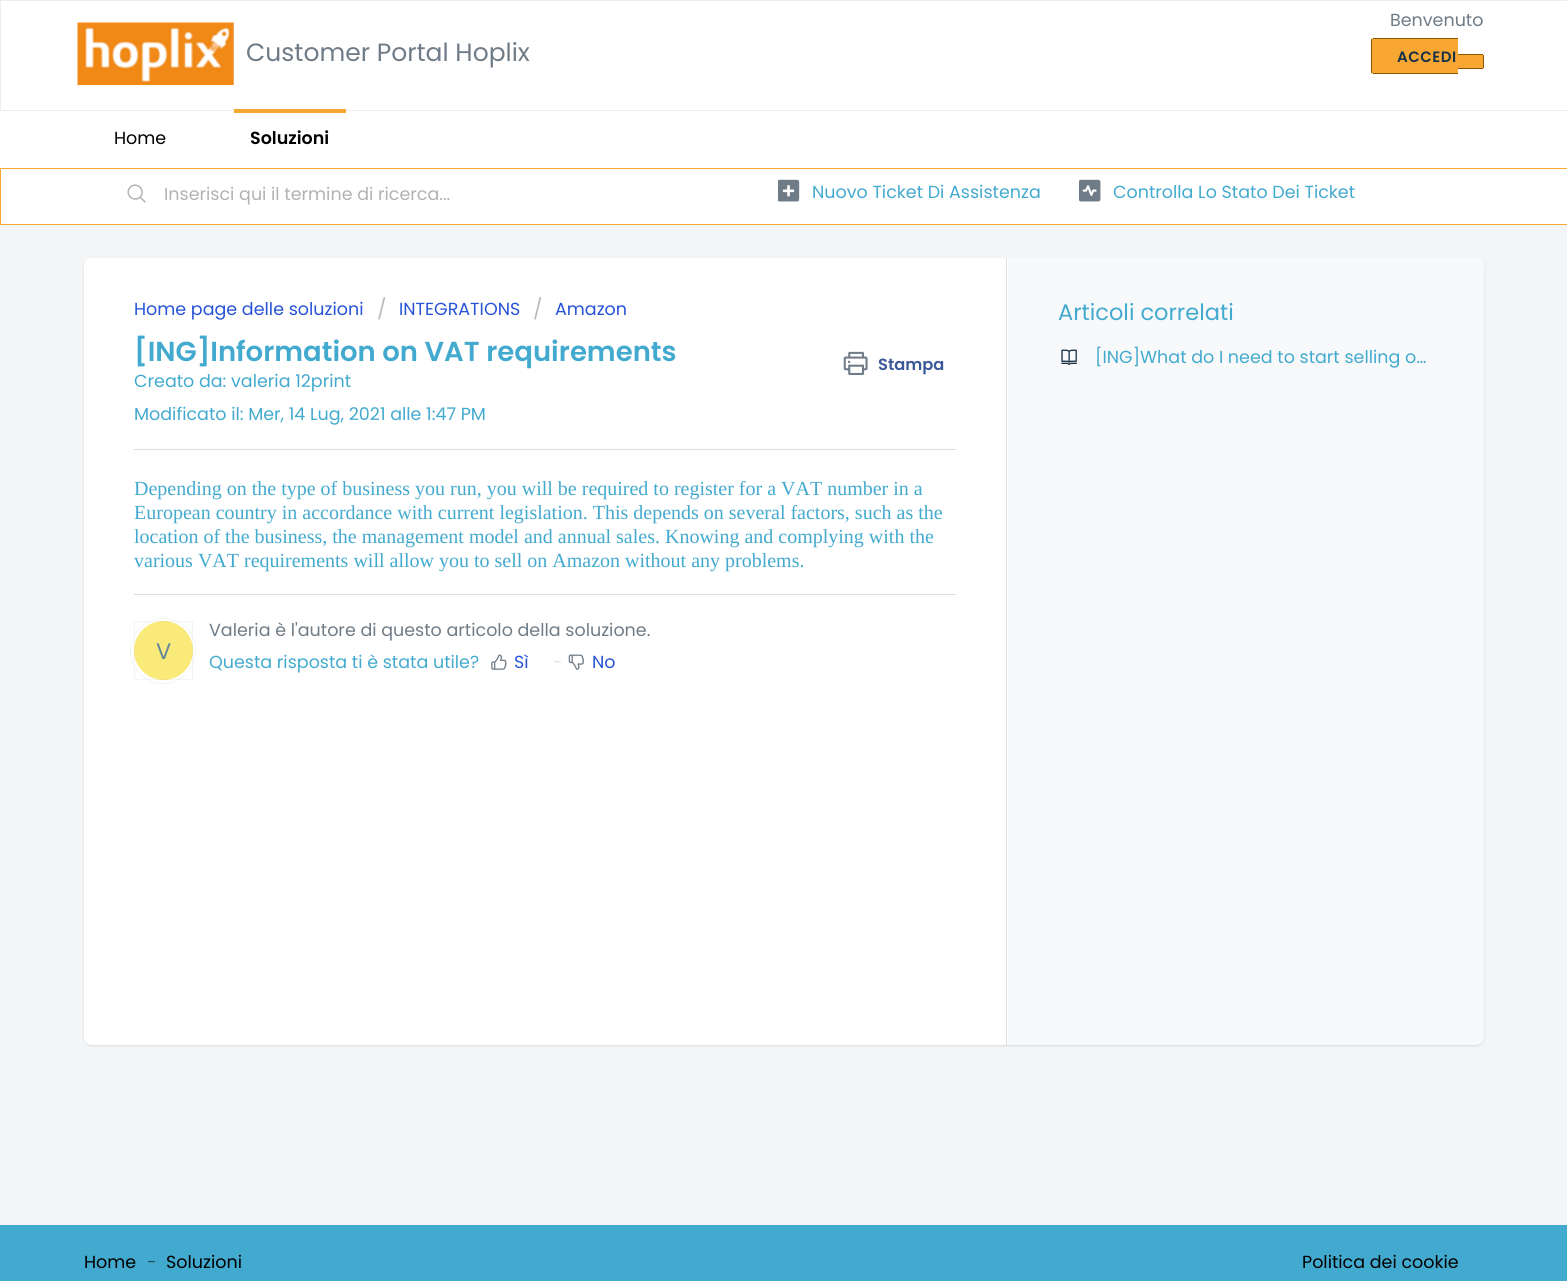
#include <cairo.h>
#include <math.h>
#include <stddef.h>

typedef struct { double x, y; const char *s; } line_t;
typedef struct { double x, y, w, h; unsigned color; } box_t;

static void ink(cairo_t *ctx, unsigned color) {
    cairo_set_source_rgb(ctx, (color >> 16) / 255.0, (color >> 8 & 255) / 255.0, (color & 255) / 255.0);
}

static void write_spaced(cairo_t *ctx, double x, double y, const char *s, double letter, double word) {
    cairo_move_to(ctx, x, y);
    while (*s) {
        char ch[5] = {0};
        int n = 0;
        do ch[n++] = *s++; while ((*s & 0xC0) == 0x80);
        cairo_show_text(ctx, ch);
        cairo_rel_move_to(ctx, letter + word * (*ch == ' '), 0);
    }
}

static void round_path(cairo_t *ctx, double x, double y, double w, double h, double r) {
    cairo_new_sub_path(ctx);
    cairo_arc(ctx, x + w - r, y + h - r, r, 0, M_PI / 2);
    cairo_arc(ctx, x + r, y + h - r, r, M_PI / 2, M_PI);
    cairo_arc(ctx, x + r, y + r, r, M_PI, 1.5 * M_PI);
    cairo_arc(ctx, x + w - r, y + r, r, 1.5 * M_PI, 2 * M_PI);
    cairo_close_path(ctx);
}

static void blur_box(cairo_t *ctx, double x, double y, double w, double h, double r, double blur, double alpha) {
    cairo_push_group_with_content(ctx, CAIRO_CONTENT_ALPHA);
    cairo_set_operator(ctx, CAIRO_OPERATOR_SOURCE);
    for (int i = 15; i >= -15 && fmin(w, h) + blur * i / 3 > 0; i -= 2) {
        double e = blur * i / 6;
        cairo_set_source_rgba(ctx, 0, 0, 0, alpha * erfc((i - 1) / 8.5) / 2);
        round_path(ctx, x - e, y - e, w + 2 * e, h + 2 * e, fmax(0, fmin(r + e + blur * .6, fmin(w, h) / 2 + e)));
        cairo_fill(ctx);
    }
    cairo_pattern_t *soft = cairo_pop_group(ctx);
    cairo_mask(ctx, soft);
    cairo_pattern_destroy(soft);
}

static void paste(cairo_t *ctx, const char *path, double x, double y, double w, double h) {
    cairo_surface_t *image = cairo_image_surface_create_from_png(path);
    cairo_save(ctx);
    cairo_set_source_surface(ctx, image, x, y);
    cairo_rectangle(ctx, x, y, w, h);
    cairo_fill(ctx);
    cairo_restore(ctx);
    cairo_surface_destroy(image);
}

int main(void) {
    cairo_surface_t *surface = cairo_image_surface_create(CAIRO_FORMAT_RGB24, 1567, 1281);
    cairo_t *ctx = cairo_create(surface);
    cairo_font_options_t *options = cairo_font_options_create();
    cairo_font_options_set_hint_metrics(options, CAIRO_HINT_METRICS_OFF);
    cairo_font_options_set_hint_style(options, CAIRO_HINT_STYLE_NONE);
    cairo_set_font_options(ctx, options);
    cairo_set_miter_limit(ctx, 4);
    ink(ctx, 0xF3F5F7);
    cairo_paint(ctx);
    ink(ctx, 0xFFFFFF);
    cairo_rectangle(ctx, 0.5, 0.5, 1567, 110);
    cairo_fill_preserve(ctx);
    ink(ctx, 0xEBEEF0);
    cairo_set_line_width(ctx, 1);
    cairo_stroke(ctx);
    paste(ctx, "media/1.png", 77, 22, 157, 63);
    cairo_select_font_face(ctx, "Poppins", CAIRO_FONT_SLANT_NORMAL, CAIRO_FONT_WEIGHT_NORMAL);
    cairo_set_font_size(ctx, 25);
    ink(ctx, 0x6F7C87);
    cairo_move_to(ctx, 246, 61);
    cairo_show_text(ctx, "Customer Portal Hoplix");
    cairo_set_font_size(ctx, 17.5);
    cairo_move_to(ctx, 1390, 26);
    cairo_show_text(ctx, "Benvenuto");
    ink(ctx, 0xF8A832);
    cairo_new_path(ctx);
    cairo_move_to(ctx, 1373.5, 38);
    cairo_line_to(ctx, 1458, 38);
    cairo_line_to(ctx, 1458, 74);
    cairo_line_to(ctx, 1373.5, 74);
    cairo_curve_to(ctx, 1372, 74, 1371, 73, 1371, 71.5);
    cairo_line_to(ctx, 1371, 40.5);
    cairo_curve_to(ctx, 1371, 39, 1372, 38, 1373.5, 38);
    cairo_close_path(ctx);
    cairo_fill(ctx);
    cairo_select_font_face(ctx, "Poppins SemiBold", CAIRO_FONT_SLANT_NORMAL, CAIRO_FONT_WEIGHT_NORMAL);
    cairo_set_font_size(ctx, 15);
    ink(ctx, 0x183247);
    write_spaced(ctx, 1397, 62, "ACCEDI", 0.5, 0);
    {
        static const box_t items[] = {
            {1373, 38, 85, 1, 0x8C5505},
            {1373, 73, 85, 1, 0x8C5505},
            {1371, 39, 1, 34, 0x8C5505},
        };
        for (size_t i = 0; i < sizeof items / sizeof *items; i++) {
            ink(ctx, items[i].color);
            cairo_rectangle(ctx, items[i].x, items[i].y, items[i].w, items[i].h);
            cairo_fill(ctx);
        }
    }
    ink(ctx, 0xF8A832);
    cairo_new_path(ctx);
    cairo_move_to(ctx, 1458, 54);
    cairo_line_to(ctx, 1481.5, 54);
    cairo_curve_to(ctx, 1483, 54, 1484, 55, 1484, 56.5);
    cairo_line_to(ctx, 1484, 66.5);
    cairo_curve_to(ctx, 1484, 68, 1483, 69, 1481.5, 69);
    cairo_line_to(ctx, 1458, 69);
    cairo_close_path(ctx);
    cairo_fill(ctx);
    {
        static const box_t items[] = {
            {1458, 54, 25, 1, 0x8C5505},
            {1483, 55, 1, 13, 0x8C5505},
            {1458, 68, 25, 1, 0x8C5505},
            {0, 111, 1567, 57, 0xFFFFFF},
        };
        for (size_t i = 0; i < sizeof items / sizeof *items; i++) {
            ink(ctx, items[i].color);
            cairo_rectangle(ctx, items[i].x, items[i].y, items[i].w, items[i].h);
            cairo_fill(ctx);
        }
    }
    cairo_select_font_face(ctx, "Poppins", CAIRO_FONT_SLANT_NORMAL, CAIRO_FONT_WEIGHT_NORMAL);
    cairo_set_font_size(ctx, 17.5);
    ink(ctx, 0x000000);
    cairo_move_to(ctx, 114, 144);
    cairo_show_text(ctx, "Home");
    ink(ctx, 0xF8A832);
    cairo_rectangle(ctx, 234, 109, 112, 4);
    cairo_fill(ctx);
    cairo_select_font_face(ctx, "Poppins SemiBold", CAIRO_FONT_SLANT_NORMAL, CAIRO_FONT_WEIGHT_NORMAL);
    ink(ctx, 0x000000);
    cairo_move_to(ctx, 250, 144);
    cairo_show_text(ctx, "Soluzioni");
    ink(ctx, 0xFFFFFF);
    cairo_rectangle(ctx, 0.5, 168.5, 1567, 56);
    cairo_fill_preserve(ctx);
    ink(ctx, 0xF8A832);
    cairo_stroke(ctx);
    paste(ctx, "media/2.png", 127, 184, 19, 19);
    cairo_select_font_face(ctx, "Poppins", CAIRO_FONT_SLANT_NORMAL, CAIRO_FONT_WEIGHT_NORMAL);
    ink(ctx, 0xB2B2B2);
    cairo_move_to(ctx, 164, 200);
    cairo_show_text(ctx, "Inserisci qui il termine di ricerca...");
    paste(ctx, "media/3.png", 778, 179, 22, 23);
    ink(ctx, 0x43AACF);
    cairo_move_to(ctx, 812, 198);
    cairo_show_text(ctx, "Nuovo Ticket Di Assistenza");
    paste(ctx, "media/4.png", 1079, 179, 22, 23);
    cairo_move_to(ctx, 1113, 198);
    cairo_show_text(ctx, "Controlla Lo Stato Dei Ticket");
    ink(ctx, 0x3F3F44);
    blur_box(ctx, 84, 259, 1400, 787, 8, 1, 0.15);
    ink(ctx, 0xF8F9FA);
    round_path(ctx, 84, 258, 1400, 787, 8);
    cairo_fill(ctx);
    ink(ctx, 0xFFFFFF);
    cairo_new_path(ctx);
    cairo_move_to(ctx, 92, 258);
    cairo_line_to(ctx, 1008, 258);
    cairo_line_to(ctx, 1008, 1045);
    cairo_line_to(ctx, 92, 1045);
    cairo_curve_to(ctx, 87.5, 1045, 84, 1041.5, 84, 1037);
    cairo_line_to(ctx, 84, 266);
    cairo_curve_to(ctx, 84, 261.5, 87.5, 258, 92, 258);
    cairo_close_path(ctx);
    cairo_fill(ctx);
    ink(ctx, 0xDADFE3);
    cairo_rectangle(ctx, 1006, 258, 1, 787);
    cairo_fill(ctx);
    ink(ctx, 0x2753D7);
    cairo_move_to(ctx, 134, 315);
    cairo_show_text(ctx, "Home page delle soluzioni");
    cairo_set_font_size(ctx, 20);
    ink(ctx, 0xBBBBBB);
    cairo_move_to(ctx, 377, 316);
    cairo_show_text(ctx, "/");
    cairo_set_font_size(ctx, 17.5);
    ink(ctx, 0x2753D7);
    cairo_move_to(ctx, 399, 315);
    cairo_show_text(ctx, "INTEGRATIONS");
    cairo_set_font_size(ctx, 20);
    ink(ctx, 0xBBBBBB);
    cairo_move_to(ctx, 533, 316);
    cairo_show_text(ctx, "/");
    cairo_set_font_size(ctx, 17.5);
    ink(ctx, 0x2753D7);
    cairo_move_to(ctx, 555, 315);
    cairo_show_text(ctx, "Amazon");
    cairo_select_font_face(ctx, "Poppins SemiBold", CAIRO_FONT_SLANT_NORMAL, CAIRO_FONT_WEIGHT_NORMAL);
    cairo_set_font_size(ctx, 27.5);
    ink(ctx, 0x43AACF);
    cairo_move_to(ctx, 134, 361);
    cairo_show_text(ctx, "[ING]Information on VAT requirements");
    paste(ctx, "media/5.png", 843, 351, 25, 24);
    cairo_set_font_size(ctx, 16.25);
    ink(ctx, 0x3B5998);
    cairo_move_to(ctx, 878, 370);
    cairo_show_text(ctx, "Stampa");
    cairo_select_font_face(ctx, "Poppins", CAIRO_FONT_SLANT_NORMAL, CAIRO_FONT_WEIGHT_NORMAL);
    cairo_set_font_size(ctx, 17.5);
    ink(ctx, 0x43AACF);
    cairo_move_to(ctx, 134, 387);
    cairo_show_text(ctx, "Creato da: valeria 12print");
    cairo_move_to(ctx, 134, 420);
    cairo_show_text(ctx, "Modificato il: Mer, 14 Lug, 2021 alle 1:47 PM");
    ink(ctx, 0xDCDCDC);
    cairo_rectangle(ctx, 134, 449, 822, 1);
    cairo_fill(ctx);
    cairo_select_font_face(ctx, "Liberation Serif", CAIRO_FONT_SLANT_NORMAL, CAIRO_FONT_WEIGHT_NORMAL);
    cairo_set_font_size(ctx, 20);
    ink(ctx, 0x43AACF);
    {
        static const line_t items[] = {
            {134, 495, "Depending on the type of business you run, you will be required to register for a VAT number in a"},
            {134, 519, "European country in accordance with current legislation. This depends on several factors, such as the"},
            {134, 543, "location of the business, the management model and annual sales. Knowing and complying with the"},
            {134, 567, "various VAT requirements will allow you to sell on Amazon without any problems."},
        };
        for (size_t i = 0; i < sizeof items / sizeof *items; i++) {
            cairo_move_to(ctx, items[i].x, items[i].y);
            cairo_show_text(ctx, items[i].s);
        }
    }
    ink(ctx, 0xDCDCDC);
    cairo_rectangle(ctx, 134, 594, 822, 1);
    cairo_fill(ctx);
    cairo_select_font_face(ctx, "Poppins", CAIRO_FONT_SLANT_NORMAL, CAIRO_FONT_WEIGHT_NORMAL);
    cairo_set_font_size(ctx, 17.5);
    ink(ctx, 0x6F7C87);
    cairo_move_to(ctx, 209, 636);
    cairo_show_text(ctx, "Valeria è l'autore di questo articolo della soluzione.");
    cairo_new_path(ctx);
    cairo_arc(ctx, 163, 651, 32.5, 0, 2 * M_PI);
    ink(ctx, 0xF3F5F7);
    cairo_stroke(ctx);
    ink(ctx, 0xFAEA79);
    cairo_arc(ctx, 163.5, 650.5, 29.5, 0, 2 * M_PI);
    cairo_fill(ctx);
    cairo_rectangle(ctx, 134.5, 621.5, 58, 58);
    cairo_set_source_rgba(ctx, 0, 0, 0, 0.04);
    cairo_stroke(ctx);
    cairo_set_font_size(ctx, 22.5);
    ink(ctx, 0x638699);
    cairo_move_to(ctx, 156, 659);
    cairo_show_text(ctx, "V");
    cairo_set_font_size(ctx, 17.5);
    ink(ctx, 0x43AACF);
    cairo_move_to(ctx, 209, 668);
    cairo_show_text(ctx, "Questa risposta ti è stata utile?");
    paste(ctx, "media/6.png", 491, 654, 16, 16);
    ink(ctx, 0x2753D7);
    cairo_move_to(ctx, 514, 668);
    cairo_show_text(ctx, "Sì");
    ink(ctx, 0xE5E5E5);
    cairo_move_to(ctx, 553, 668);
    cairo_show_text(ctx, "-");
    paste(ctx, "media/7.png", 568, 654, 16, 16);
    ink(ctx, 0x2753D7);
    cairo_move_to(ctx, 592, 668);
    cairo_show_text(ctx, "No");
    ink(ctx, 0xF8F9FA);
    cairo_new_path(ctx);
    cairo_move_to(ctx, 1008, 258);
    cairo_line_to(ctx, 1476, 258);
    cairo_curve_to(ctx, 1480.5, 258, 1484, 261.5, 1484, 266);
    cairo_line_to(ctx, 1484, 401);
    cairo_curve_to(ctx, 1484, 405.5, 1480.5, 409, 1476, 409);
    cairo_line_to(ctx, 1008, 409);
    cairo_close_path(ctx);
    cairo_fill(ctx);
    cairo_set_font_size(ctx, 22.5);
    ink(ctx, 0x43AACF);
    cairo_move_to(ctx, 1058, 320);
    cairo_show_text(ctx, "Articoli correlati");
    paste(ctx, "media/8.png", 1061, 349, 16, 16);
    cairo_set_font_size(ctx, 17.5);
    cairo_move_to(ctx, 1095, 363);
    cairo_show_text(ctx, "[ING]What do I need to start selling o…");
    cairo_rectangle(ctx, 0, 1225, 1567, 56);
    cairo_fill(ctx);
    ink(ctx, 0x000000);
    cairo_move_to(ctx, 84, 1268);
    cairo_show_text(ctx, "Home");
    ink(ctx, 0x225568);
    cairo_move_to(ctx, 147, 1268);
    cairo_show_text(ctx, "-");
    ink(ctx, 0x000000);
    cairo_move_to(ctx, 166, 1268);
    cairo_show_text(ctx, "Soluzioni");
    cairo_move_to(ctx, 1302, 1268);
    cairo_show_text(ctx, "Politica dei cookie");
    cairo_surface_write_to_png(surface, "image.png");
    cairo_font_options_destroy(options);
    cairo_destroy(ctx);
    cairo_surface_destroy(surface);
    return 0;
}
